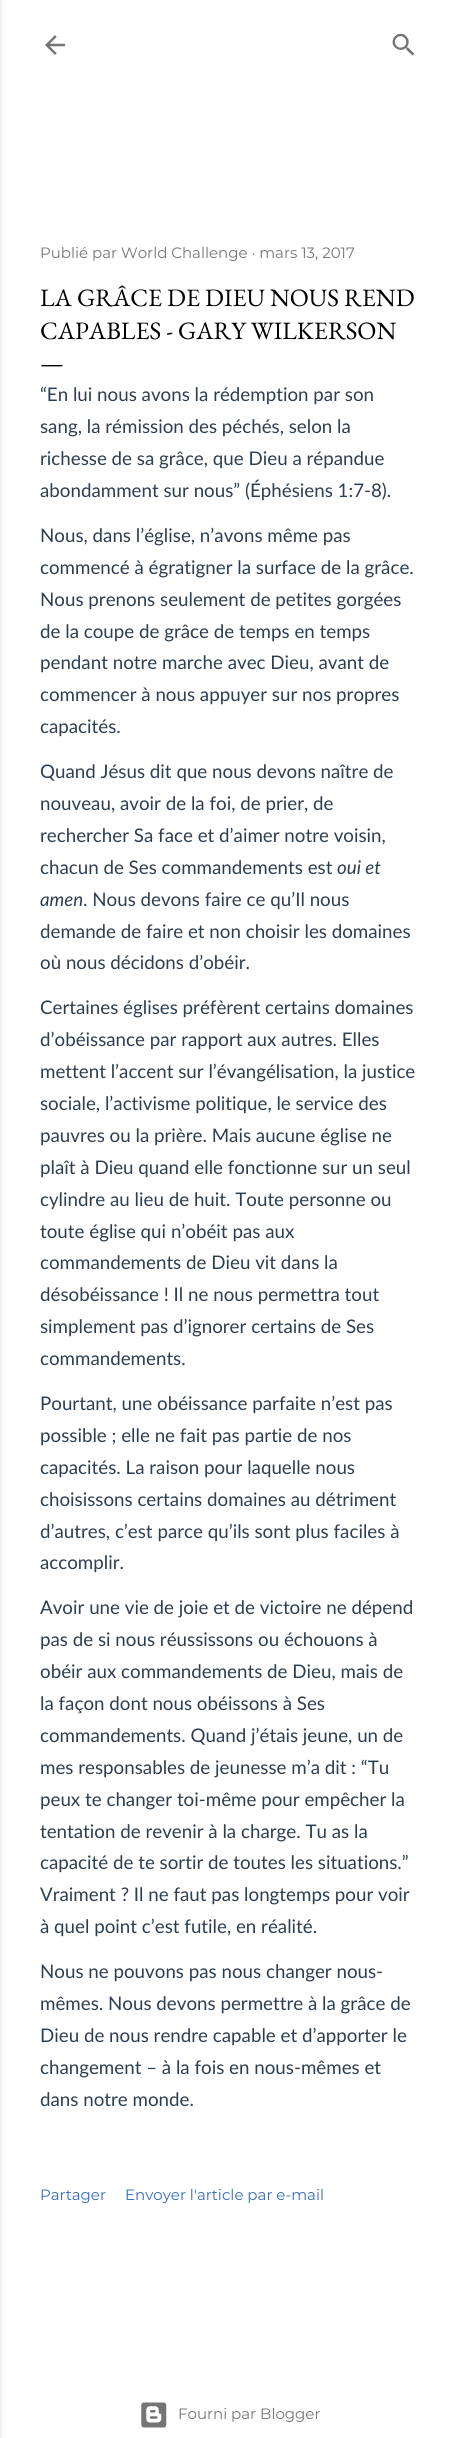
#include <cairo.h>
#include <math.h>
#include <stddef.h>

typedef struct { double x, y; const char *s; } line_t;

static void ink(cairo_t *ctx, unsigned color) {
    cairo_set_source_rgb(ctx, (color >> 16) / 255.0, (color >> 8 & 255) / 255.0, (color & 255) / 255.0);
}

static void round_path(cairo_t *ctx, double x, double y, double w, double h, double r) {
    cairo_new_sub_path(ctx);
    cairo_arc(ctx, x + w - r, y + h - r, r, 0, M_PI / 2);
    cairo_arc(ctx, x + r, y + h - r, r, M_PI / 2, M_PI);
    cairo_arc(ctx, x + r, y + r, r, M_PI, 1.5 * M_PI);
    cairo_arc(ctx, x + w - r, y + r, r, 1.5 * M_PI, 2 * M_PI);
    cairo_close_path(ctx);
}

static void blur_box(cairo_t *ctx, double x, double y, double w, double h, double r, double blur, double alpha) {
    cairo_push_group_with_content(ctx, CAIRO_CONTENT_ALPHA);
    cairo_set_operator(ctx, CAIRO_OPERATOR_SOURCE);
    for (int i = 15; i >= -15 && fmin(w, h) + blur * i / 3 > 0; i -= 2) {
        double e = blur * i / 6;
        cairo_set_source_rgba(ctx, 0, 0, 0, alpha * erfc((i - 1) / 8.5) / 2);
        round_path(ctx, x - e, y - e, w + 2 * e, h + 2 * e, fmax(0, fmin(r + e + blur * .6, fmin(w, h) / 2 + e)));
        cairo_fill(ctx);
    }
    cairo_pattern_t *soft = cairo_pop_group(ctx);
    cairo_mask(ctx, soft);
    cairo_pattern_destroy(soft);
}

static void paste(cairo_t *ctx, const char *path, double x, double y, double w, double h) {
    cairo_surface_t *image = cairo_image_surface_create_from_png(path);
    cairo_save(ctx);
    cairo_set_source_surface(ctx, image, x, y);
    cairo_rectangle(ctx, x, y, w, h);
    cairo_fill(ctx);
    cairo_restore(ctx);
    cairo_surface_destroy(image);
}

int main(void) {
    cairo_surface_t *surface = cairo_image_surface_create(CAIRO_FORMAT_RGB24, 458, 2438);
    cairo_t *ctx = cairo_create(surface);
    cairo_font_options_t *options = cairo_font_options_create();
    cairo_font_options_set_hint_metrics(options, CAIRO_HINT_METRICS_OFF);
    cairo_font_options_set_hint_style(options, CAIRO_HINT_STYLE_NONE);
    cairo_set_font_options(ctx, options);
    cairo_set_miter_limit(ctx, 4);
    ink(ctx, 0xFFFFFF);
    cairo_paint(ctx);
    ink(ctx, 0x000000);
    blur_box(ctx, -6, 0, 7, 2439, 0, 2, 0.1);
    paste(ctx, "media/1.png", 45, 35, 20, 20);
    paste(ctx, "media/2.png", 392, 33, 23, 23);
    cairo_select_font_face(ctx, "Montserrat", CAIRO_FONT_SLANT_NORMAL, CAIRO_FONT_WEIGHT_NORMAL);
    cairo_set_font_size(ctx, 15);
    ink(ctx, 0x757575);
    cairo_move_to(ctx, 40, 258);
    cairo_show_text(ctx, "Publié par World Challenge · mars 13, 2017");
    cairo_select_font_face(ctx, "EB Garamond", CAIRO_FONT_SLANT_NORMAL, CAIRO_FONT_WEIGHT_NORMAL);
    cairo_set_font_size(ctx, 25);
    ink(ctx, 0x000000);
    {
        static const line_t items[] = {
            {40, 306, "LA GRÂCE DE DIEU NOUS REND"},
            {40, 339, "CAPABLES - GARY WILKERSON"},
            {40, 371, "—"},
        };
        for (size_t i = 0; i < sizeof items / sizeof *items; i++) {
            cairo_move_to(ctx, items[i].x, items[i].y);
            cairo_show_text(ctx, items[i].s);
        }
    }
    cairo_select_font_face(ctx, "Lato", CAIRO_FONT_SLANT_NORMAL, CAIRO_FONT_WEIGHT_NORMAL);
    cairo_set_font_size(ctx, 18.75);
    ink(ctx, 0x2C3E50);
    {
        static const line_t items[] = {
            {40, 401, "“En lui nous avons la rédemption par son"},
            {40, 433, "sang, la rémission des péchés, selon la"},
            {40, 465, "richesse de sa grâce, que Dieu a répandue"},
            {40, 497, "abondamment sur nous” (Éphésiens 1:7-8)."},
            {40, 542, "Nous, dans l’église, n’avons même pas"},
            {40, 574, "commencé à égratigner la surface de la grâce."},
            {40, 606, "Nous prenons seulement de petites gorgées"},
            {40, 638, "de la coupe de grâce de temps en temps"},
            {40, 669, "pendant notre marche avec Dieu, avant de"},
            {40, 701, "commencer à nous appuyer sur nos propres"},
            {40, 733, "capacités."},
            {40, 778, "Quand Jésus dit que nous devons naître de"},
            {40, 810, "nouveau, avoir de la foi, de prier, de"},
            {40, 842, "rechercher Sa face et d’aimer notre voisin,"},
            {40, 874, "chacun de Ses commandements est"},
        };
        for (size_t i = 0; i < sizeof items / sizeof *items; i++) {
            cairo_move_to(ctx, items[i].x, items[i].y);
            cairo_show_text(ctx, items[i].s);
        }
    }
    cairo_select_font_face(ctx, "Lato", CAIRO_FONT_SLANT_ITALIC, CAIRO_FONT_WEIGHT_NORMAL);
    cairo_move_to(ctx, 337, 874);
    cairo_show_text(ctx, "oui et");
    cairo_move_to(ctx, 40, 906);
    cairo_show_text(ctx, "amen");
    cairo_select_font_face(ctx, "Lato", CAIRO_FONT_SLANT_NORMAL, CAIRO_FONT_WEIGHT_NORMAL);
    {
        static const line_t items[] = {
            {83, 906, ". Nous devons faire ce qu’Il nous"},
            {40, 938, "demande de faire et non choisir les domaines"},
            {40, 969, "où nous décidons d’obéir."},
            {40, 1014, "Certaines églises préfèrent certains domaines"},
            {40, 1046, "d’obéissance par rapport aux autres. Elles"},
            {40, 1078, "mettent l’accent sur l’évangélisation, la justice"},
            {40, 1110, "sociale, l’activisme politique, le service des"},
            {40, 1142, "pauvres ou la prière. Mais aucune église ne"},
            {40, 1174, "plaît à Dieu quand elle fonctionne sur un seul"},
            {40, 1206, "cylindre au lieu de huit. Toute personne ou"},
            {40, 1238, "toute église qui n’obéit pas aux"},
            {40, 1269, "commandements de Dieu vit dans la"},
            {40, 1301, "désobéissance ! Il ne nous permettra tout"},
            {40, 1333, "simplement pas d’ignorer certains de Ses"},
            {40, 1365, "commandements."},
            {40, 1410, "Pourtant, une obéissance parfaite n’est pas"},
            {40, 1442, "possible ; elle ne fait pas partie de nos"},
            {40, 1474, "capacités. La raison pour laquelle nous"},
            {40, 1506, "choisissons certains domaines au détriment"},
            {40, 1538, "d’autres, c’est parce qu’ils sont plus faciles à"},
            {40, 1569, "accomplir."},
            {40, 1614, "Avoir une vie de joie et de victoire ne dépend"},
            {40, 1646, "pas de si nous réussissons ou échouons à"},
            {40, 1678, "obéir aux commandements de Dieu, mais de"},
            {40, 1710, "la façon dont nous obéissons à Ses"},
            {40, 1742, "commandements. Quand j’étais jeune, un de"},
            {40, 1774, "mes responsables de jeunesse m’a dit : “Tu"},
            {40, 1806, "peux te changer toi-même pour empêcher la"},
            {40, 1838, "tentation de revenir à la charge. Tu as la"},
            {40, 1869, "capacité de te sortir de toutes les situations.”"},
            {40, 1901, "Vraiment ? Il ne faut pas longtemps pour voir"},
            {40, 1933, "à quel point c’est futile, en réalité."},
            {40, 1978, "Nous ne pouvons pas nous changer nous-"},
            {40, 2010, "mêmes. Nous devons permettre à la grâce de"},
            {40, 2042, "Dieu de nous rendre capable et d’apporter le"},
            {40, 2074, "changement – à la fois en nous-mêmes et"},
            {40, 2106, "dans notre monde."},
        };
        for (size_t i = 0; i < sizeof items / sizeof *items; i++) {
            cairo_move_to(ctx, items[i].x, items[i].y);
            cairo_show_text(ctx, items[i].s);
        }
    }
    cairo_select_font_face(ctx, "Montserrat", CAIRO_FONT_SLANT_NORMAL, CAIRO_FONT_WEIGHT_NORMAL);
    cairo_set_font_size(ctx, 15);
    ink(ctx, 0x376BBE);
    cairo_move_to(ctx, 40, 2200);
    cairo_show_text(ctx, "Partager");
    cairo_move_to(ctx, 125, 2200);
    cairo_show_text(ctx, "Envoyer l'article par e-mail");
    paste(ctx, "media/3.png", 141, 2402, 26, 26);
    ink(ctx, 0x757575);
    cairo_move_to(ctx, 178, 2419);
    cairo_show_text(ctx, "Fourni par Blogger");
    cairo_surface_write_to_png(surface, "image.png");
    cairo_font_options_destroy(options);
    cairo_destroy(ctx);
    cairo_surface_destroy(surface);
    return 0;
}
